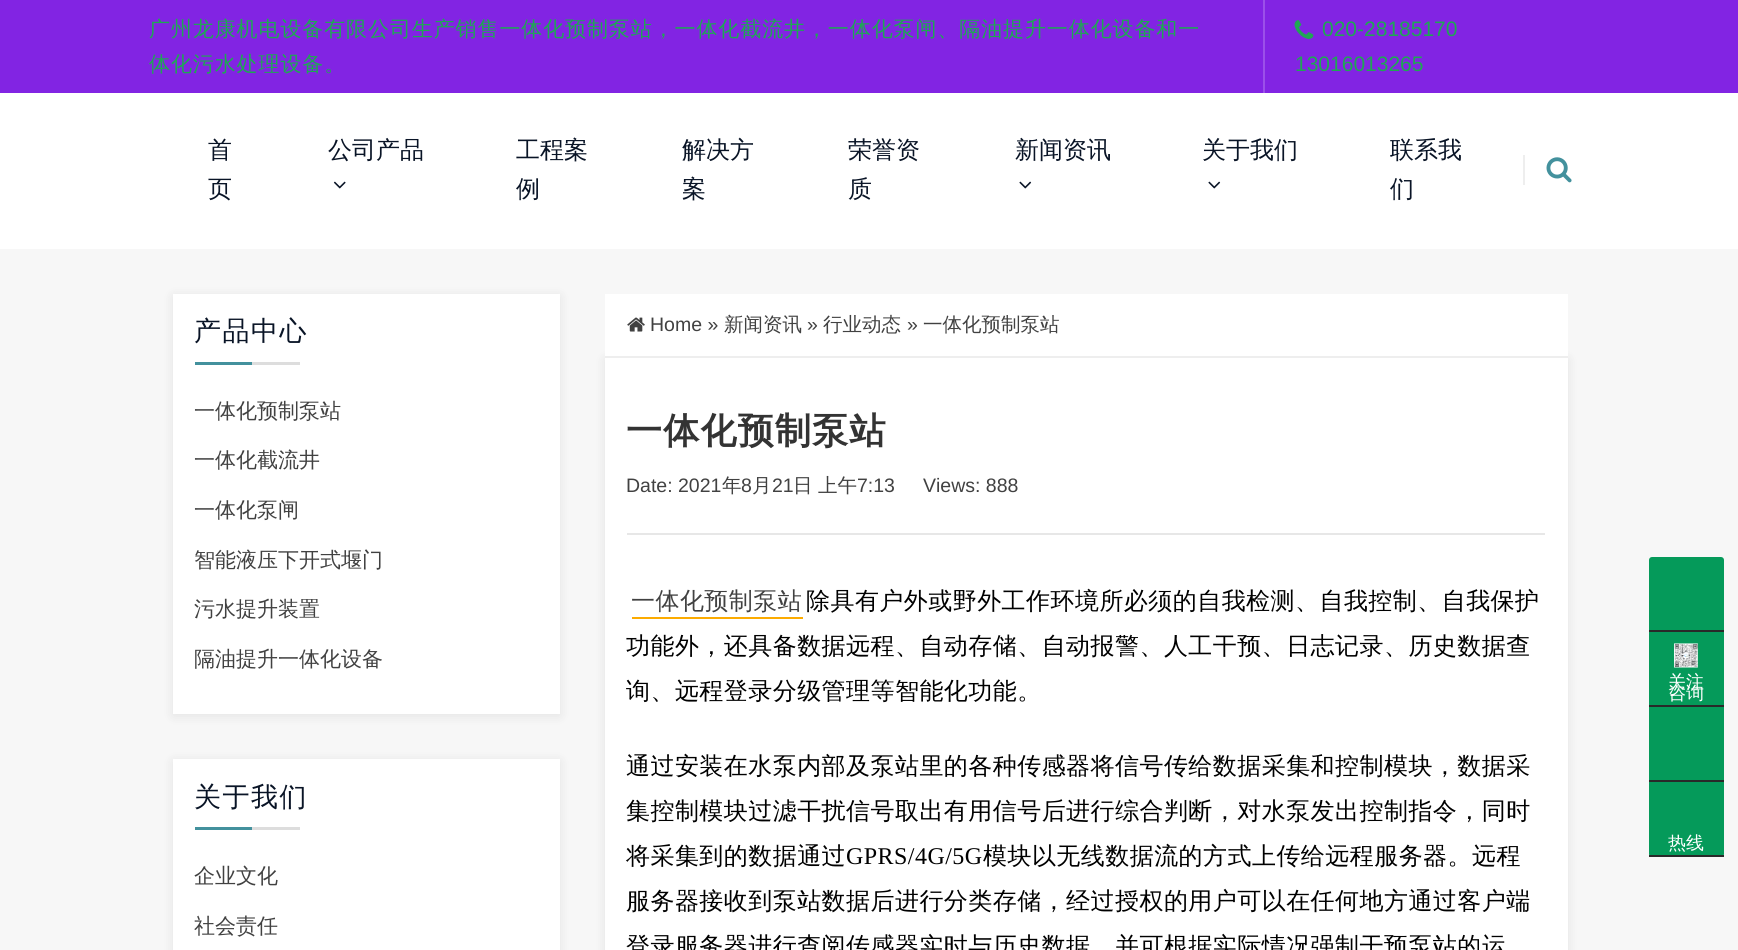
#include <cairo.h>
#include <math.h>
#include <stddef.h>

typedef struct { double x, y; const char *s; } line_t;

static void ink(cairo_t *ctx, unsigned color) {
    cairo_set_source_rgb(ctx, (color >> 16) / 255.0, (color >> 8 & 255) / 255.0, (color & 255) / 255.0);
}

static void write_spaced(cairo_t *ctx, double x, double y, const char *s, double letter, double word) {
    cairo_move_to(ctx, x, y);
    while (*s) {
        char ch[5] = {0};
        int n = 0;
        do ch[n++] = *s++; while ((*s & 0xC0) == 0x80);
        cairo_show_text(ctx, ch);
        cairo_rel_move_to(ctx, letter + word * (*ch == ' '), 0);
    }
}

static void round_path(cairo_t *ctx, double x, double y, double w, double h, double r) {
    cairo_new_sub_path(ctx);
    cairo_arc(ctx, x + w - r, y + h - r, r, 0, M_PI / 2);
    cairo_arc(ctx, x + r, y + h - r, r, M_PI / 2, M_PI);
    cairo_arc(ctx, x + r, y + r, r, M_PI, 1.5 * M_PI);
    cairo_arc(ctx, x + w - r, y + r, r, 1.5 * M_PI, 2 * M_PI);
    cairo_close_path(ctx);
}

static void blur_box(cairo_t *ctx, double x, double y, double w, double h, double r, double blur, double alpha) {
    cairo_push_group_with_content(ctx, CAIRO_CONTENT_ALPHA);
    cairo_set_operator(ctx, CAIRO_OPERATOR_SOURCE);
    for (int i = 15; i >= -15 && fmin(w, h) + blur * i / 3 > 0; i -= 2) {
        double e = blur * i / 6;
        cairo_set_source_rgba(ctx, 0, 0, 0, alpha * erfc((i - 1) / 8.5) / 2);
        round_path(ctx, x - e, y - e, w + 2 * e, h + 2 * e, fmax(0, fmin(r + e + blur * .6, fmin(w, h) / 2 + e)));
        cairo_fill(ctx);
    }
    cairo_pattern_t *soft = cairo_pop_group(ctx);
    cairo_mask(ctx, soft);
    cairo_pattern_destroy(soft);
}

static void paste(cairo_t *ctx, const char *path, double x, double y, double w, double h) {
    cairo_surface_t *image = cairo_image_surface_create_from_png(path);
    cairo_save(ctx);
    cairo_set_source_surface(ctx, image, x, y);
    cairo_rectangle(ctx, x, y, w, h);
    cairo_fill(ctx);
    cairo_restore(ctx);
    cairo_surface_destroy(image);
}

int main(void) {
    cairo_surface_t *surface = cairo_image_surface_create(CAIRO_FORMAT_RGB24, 1738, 950);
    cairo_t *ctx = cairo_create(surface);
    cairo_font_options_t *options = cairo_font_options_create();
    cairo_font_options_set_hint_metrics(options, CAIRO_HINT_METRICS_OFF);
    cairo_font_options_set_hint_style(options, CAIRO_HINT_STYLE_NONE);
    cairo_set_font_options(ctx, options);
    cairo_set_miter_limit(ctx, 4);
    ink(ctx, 0xFFFFFF);
    cairo_paint(ctx);
    ink(ctx, 0x8224E3);
    cairo_rectangle(ctx, 0, 0, 1738, 93);
    cairo_fill(ctx);
    cairo_select_font_face(ctx, "WenQuanYi Zen Hei Medium", CAIRO_FONT_SLANT_NORMAL, CAIRO_FONT_WEIGHT_NORMAL);
    cairo_set_font_size(ctx, 21);
    ink(ctx, 0x1EA754);
    write_spaced(ctx, 149, 36, "广州龙康机电设备有限公司生产销售一体化预制泵站，一体化截流井，一体化泵闸、隔油提升一体化设备和一", 0.9, 0);
    write_spaced(ctx, 149, 71, "体化污水处理设备。", 0.9, 0);
    ink(ctx, 0x9B50E9);
    cairo_rectangle(ctx, 1263, 0, 2, 93);
    cairo_fill(ctx);
    paste(ctx, "media/1.png", 1294, 20, 20, 19);
    cairo_select_font_face(ctx, "Liberation Sans", CAIRO_FONT_SLANT_NORMAL, CAIRO_FONT_WEIGHT_NORMAL);
    ink(ctx, 0x1EA754);
    cairo_move_to(ctx, 1322, 36);
    cairo_show_text(ctx, "020-28185170");
    cairo_move_to(ctx, 1295, 71);
    cairo_show_text(ctx, "13016013265");
    cairo_select_font_face(ctx, "WenQuanYi Zen Hei Medium", CAIRO_FONT_SLANT_NORMAL, CAIRO_FONT_WEIGHT_NORMAL);
    cairo_set_font_size(ctx, 24);
    ink(ctx, 0x091426);
    {
        static const line_t items[] = {
            {208, 158, "首"},
            {208, 197, "页"},
            {328, 158, "公司产品"},
        };
        for (size_t i = 0; i < sizeof items / sizeof *items; i++) {
            cairo_move_to(ctx, items[i].x, items[i].y);
            cairo_show_text(ctx, items[i].s);
        }
    }
    paste(ctx, "media/2.png", 333, 181, 13, 8);
    {
        static const line_t items[] = {
            {516, 158, "工程案"},
            {516, 197, "例"},
            {682, 158, "解决方"},
            {682, 197, "案"},
            {848, 158, "荣誉资"},
            {848, 197, "质"},
            {1015, 158, "新闻资讯"},
        };
        for (size_t i = 0; i < sizeof items / sizeof *items; i++) {
            cairo_move_to(ctx, items[i].x, items[i].y);
            cairo_show_text(ctx, items[i].s);
        }
    }
    paste(ctx, "media/3.png", 1019, 181, 13, 8);
    cairo_move_to(ctx, 1202, 158);
    cairo_show_text(ctx, "关于我们");
    paste(ctx, "media/3.png", 1208, 181, 13, 8);
    cairo_move_to(ctx, 1390, 158);
    cairo_show_text(ctx, "联系我");
    cairo_move_to(ctx, 1390, 197);
    cairo_show_text(ctx, "们");
    ink(ctx, 0xEEEEEE);
    cairo_rectangle(ctx, 1523, 155, 2, 30);
    cairo_fill(ctx);
    paste(ctx, "media/4.png", 1546, 157, 26, 26);
    ink(ctx, 0xF7F7F7);
    cairo_rectangle(ctx, 0, 249, 1738, 701);
    cairo_fill(ctx);
    ink(ctx, 0x000000);
    blur_box(ctx, 173, 296, 387, 420, 0, 6, 0.08);
    ink(ctx, 0xFFFFFF);
    cairo_rectangle(ctx, 173, 294, 387, 420);
    cairo_fill(ctx);
    cairo_set_font_size(ctx, 27);
    ink(ctx, 0x091426);
    write_spaced(ctx, 194, 340, "产品中心", 1.5, 0);
    ink(ctx, 0x43919D);
    cairo_rectangle(ctx, 195, 362, 57, 3);
    cairo_fill(ctx);
    ink(ctx, 0xDDDDDD);
    cairo_rectangle(ctx, 252, 362, 48, 3);
    cairo_fill(ctx);
    cairo_set_font_size(ctx, 21);
    ink(ctx, 0x414141);
    {
        static const line_t items[] = {
            {194, 418, "一体化预制泵站"},
            {194, 467, "一体化截流井"},
            {194, 517, "一体化泵闸"},
            {194, 567, "智能液压下开式堰门"},
            {194, 616, "污水提升装置"},
            {194, 666, "隔油提升一体化设备"},
        };
        for (size_t i = 0; i < sizeof items / sizeof *items; i++) {
            cairo_move_to(ctx, items[i].x, items[i].y);
            cairo_show_text(ctx, items[i].s);
        }
    }
    ink(ctx, 0x000000);
    blur_box(ctx, 173, 761, 387, 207, 0, 6, 0.08);
    ink(ctx, 0xFFFFFF);
    cairo_rectangle(ctx, 173, 759, 387, 191);
    cairo_fill(ctx);
    cairo_set_font_size(ctx, 27);
    ink(ctx, 0x091426);
    write_spaced(ctx, 194, 806, "关于我们", 1.5, 0);
    ink(ctx, 0x43919D);
    cairo_rectangle(ctx, 195, 827, 57, 3);
    cairo_fill(ctx);
    ink(ctx, 0xDDDDDD);
    cairo_rectangle(ctx, 252, 827, 48, 3);
    cairo_fill(ctx);
    cairo_set_font_size(ctx, 21);
    ink(ctx, 0x414141);
    cairo_move_to(ctx, 194, 883);
    cairo_show_text(ctx, "企业文化");
    cairo_move_to(ctx, 194, 933);
    cairo_show_text(ctx, "社会责任");
    ink(ctx, 0x000000);
    blur_box(ctx, 605, 359, 963, 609, 0, 6, 0.08);
    ink(ctx, 0xFFFFFF);
    cairo_rectangle(ctx, 605, 294, 963, 62);
    cairo_fill(ctx);
    ink(ctx, 0xEEEEEE);
    cairo_rectangle(ctx, 605, 356, 963, 2);
    cairo_fill(ctx);
    paste(ctx, "media/5.png", 627, 317, 18, 15);
    cairo_select_font_face(ctx, "Liberation Sans", CAIRO_FONT_SLANT_NORMAL, CAIRO_FONT_WEIGHT_NORMAL);
    cairo_set_font_size(ctx, 19.5);
    ink(ctx, 0x414141);
    cairo_move_to(ctx, 650, 331);
    cairo_show_text(ctx, "Home »");
    cairo_select_font_face(ctx, "WenQuanYi Zen Hei Medium", CAIRO_FONT_SLANT_NORMAL, CAIRO_FONT_WEIGHT_NORMAL);
    cairo_move_to(ctx, 724, 331);
    cairo_show_text(ctx, "新闻资讯");
    cairo_select_font_face(ctx, "Liberation Sans", CAIRO_FONT_SLANT_NORMAL, CAIRO_FONT_WEIGHT_NORMAL);
    cairo_move_to(ctx, 807, 331);
    cairo_show_text(ctx, "»");
    cairo_select_font_face(ctx, "WenQuanYi Zen Hei Medium", CAIRO_FONT_SLANT_NORMAL, CAIRO_FONT_WEIGHT_NORMAL);
    cairo_move_to(ctx, 823, 331);
    cairo_show_text(ctx, "行业动态");
    cairo_select_font_face(ctx, "Liberation Sans", CAIRO_FONT_SLANT_NORMAL, CAIRO_FONT_WEIGHT_NORMAL);
    cairo_move_to(ctx, 907, 331);
    cairo_show_text(ctx, "»");
    cairo_select_font_face(ctx, "WenQuanYi Zen Hei Medium", CAIRO_FONT_SLANT_NORMAL, CAIRO_FONT_WEIGHT_NORMAL);
    cairo_move_to(ctx, 923, 331);
    cairo_show_text(ctx, "一体化预制泵站");
    ink(ctx, 0xFFFFFF);
    cairo_rectangle(ctx, 605, 358, 963, 592);
    cairo_fill(ctx);
    cairo_select_font_face(ctx, "WenQuanYi Zen Hei", CAIRO_FONT_SLANT_NORMAL, CAIRO_FONT_WEIGHT_BOLD);
    cairo_set_font_size(ctx, 36);
    ink(ctx, 0x333333);
    write_spaced(ctx, 626, 443, "一体化预制泵站", 1.25, 0);
    ink(ctx, 0xE7E7E7);
    cairo_rectangle(ctx, 627, 533, 918, 2);
    cairo_fill(ctx);
    cairo_select_font_face(ctx, "Liberation Sans", CAIRO_FONT_SLANT_NORMAL, CAIRO_FONT_WEIGHT_NORMAL);
    cairo_set_font_size(ctx, 19.5);
    ink(ctx, 0x414141);
    cairo_move_to(ctx, 626, 492);
    cairo_show_text(ctx, "Date: 2021");
    cairo_select_font_face(ctx, "WenQuanYi Zen Hei Medium", CAIRO_FONT_SLANT_NORMAL, CAIRO_FONT_WEIGHT_NORMAL);
    cairo_move_to(ctx, 722, 492);
    cairo_show_text(ctx, "年");
    cairo_select_font_face(ctx, "Liberation Sans", CAIRO_FONT_SLANT_NORMAL, CAIRO_FONT_WEIGHT_NORMAL);
    cairo_move_to(ctx, 741, 492);
    cairo_show_text(ctx, "8");
    cairo_select_font_face(ctx, "WenQuanYi Zen Hei Medium", CAIRO_FONT_SLANT_NORMAL, CAIRO_FONT_WEIGHT_NORMAL);
    cairo_move_to(ctx, 752, 492);
    cairo_show_text(ctx, "月");
    cairo_select_font_face(ctx, "Liberation Sans", CAIRO_FONT_SLANT_NORMAL, CAIRO_FONT_WEIGHT_NORMAL);
    cairo_move_to(ctx, 772, 492);
    cairo_show_text(ctx, "21");
    cairo_select_font_face(ctx, "WenQuanYi Zen Hei Medium", CAIRO_FONT_SLANT_NORMAL, CAIRO_FONT_WEIGHT_NORMAL);
    cairo_move_to(ctx, 793, 492);
    cairo_show_text(ctx, "日");
    cairo_move_to(ctx, 818, 492);
    cairo_show_text(ctx, "上午");
    cairo_select_font_face(ctx, "Liberation Sans", CAIRO_FONT_SLANT_NORMAL, CAIRO_FONT_WEIGHT_NORMAL);
    cairo_move_to(ctx, 857, 492);
    cairo_show_text(ctx, "7:13");
    cairo_move_to(ctx, 923, 492);
    cairo_show_text(ctx, "Views: 888");
    cairo_select_font_face(ctx, "WenQuanYi Zen Hei Medium", CAIRO_FONT_SLANT_NORMAL, CAIRO_FONT_WEIGHT_NORMAL);
    cairo_set_font_size(ctx, 24);
    write_spaced(ctx, 631, 609, "一体化预制泵站", 0.45, 0);
    ink(ctx, 0xFCAB00);
    cairo_rectangle(ctx, 632, 617, 171, 2);
    cairo_fill(ctx);
    ink(ctx, 0x000000);
    {
        static const line_t items[] = {
            {806, 609, "除具有户外或野外工作环境所必须的自我检测、自我控制、自我保护"},
            {626, 654, "功能外，还具备数据远程、自动存储、自动报警、人工干预、日志记录、历史数据查"},
            {626, 699, "询、远程登录分级管理等智能化功能。"},
            {626, 774, "通过安装在水泵内部及泵站里的各种传感器将信号传给数据采集和控制模块，数据采"},
            {626, 819, "集控制模块过滤干扰信号取出有用信号后进行综合判断，对水泵发出控制指令，同时"},
            {626, 864, "将采集到的数据通过"},
        };
        for (size_t i = 0; i < sizeof items / sizeof *items; i++) {
            write_spaced(ctx, items[i].x, items[i].y, items[i].s, 0.45, 0);
        }
    }
    cairo_select_font_face(ctx, "Liberation Serif", CAIRO_FONT_SLANT_NORMAL, CAIRO_FONT_WEIGHT_NORMAL);
    write_spaced(ctx, 846, 864, "GPRS/4G/5G", 0.45, 0);
    cairo_select_font_face(ctx, "WenQuanYi Zen Hei Medium", CAIRO_FONT_SLANT_NORMAL, CAIRO_FONT_WEIGHT_NORMAL);
    {
        static const line_t items[] = {
            {983, 864, "模块以无线数据流的方式上传给远程服务器。远程"},
            {626, 909, "服务器接收到泵站数据后进行分类存储，经过授权的用户可以在任何地方通过客户端"},
            {626, 954, "登录服务器进行查阅传感器实时与历史数据，并可根据实际情况强制干预泵站的运"},
        };
        for (size_t i = 0; i < sizeof items / sizeof *items; i++) {
            write_spaced(ctx, items[i].x, items[i].y, items[i].s, 0.45, 0);
        }
    }
    ink(ctx, 0x059A5A);
    round_path(ctx, 1649, 557, 75, 300, 3);
    cairo_fill(ctx);
    ink(ctx, 0x292929);
    cairo_rectangle(ctx, 1649, 705, 75, 2);
    cairo_fill(ctx);
    paste(ctx, "media/6.png", 1674, 643, 24, 25);
    cairo_set_font_size(ctx, 18);
    ink(ctx, 0xFFFFFF);
    cairo_move_to(ctx, 1668, 688);
    cairo_show_text(ctx, "关注");
    ink(ctx, 0x292929);
    cairo_rectangle(ctx, 1649, 630, 75, 2);
    cairo_fill(ctx);
    ink(ctx, 0xFFFFFF);
    cairo_move_to(ctx, 1668, 699);
    cairo_show_text(ctx, "咨询");
    ink(ctx, 0x292929);
    cairo_rectangle(ctx, 1649, 780, 75, 2);
    cairo_fill(ctx);
    ink(ctx, 0xFFFFFF);
    cairo_move_to(ctx, 1668, 849);
    cairo_show_text(ctx, "热线");
    ink(ctx, 0x292929);
    cairo_rectangle(ctx, 1649, 855, 75, 2);
    cairo_fill(ctx);
    cairo_surface_write_to_png(surface, "image.png");
    cairo_font_options_destroy(options);
    cairo_destroy(ctx);
    cairo_surface_destroy(surface);
    return 0;
}
